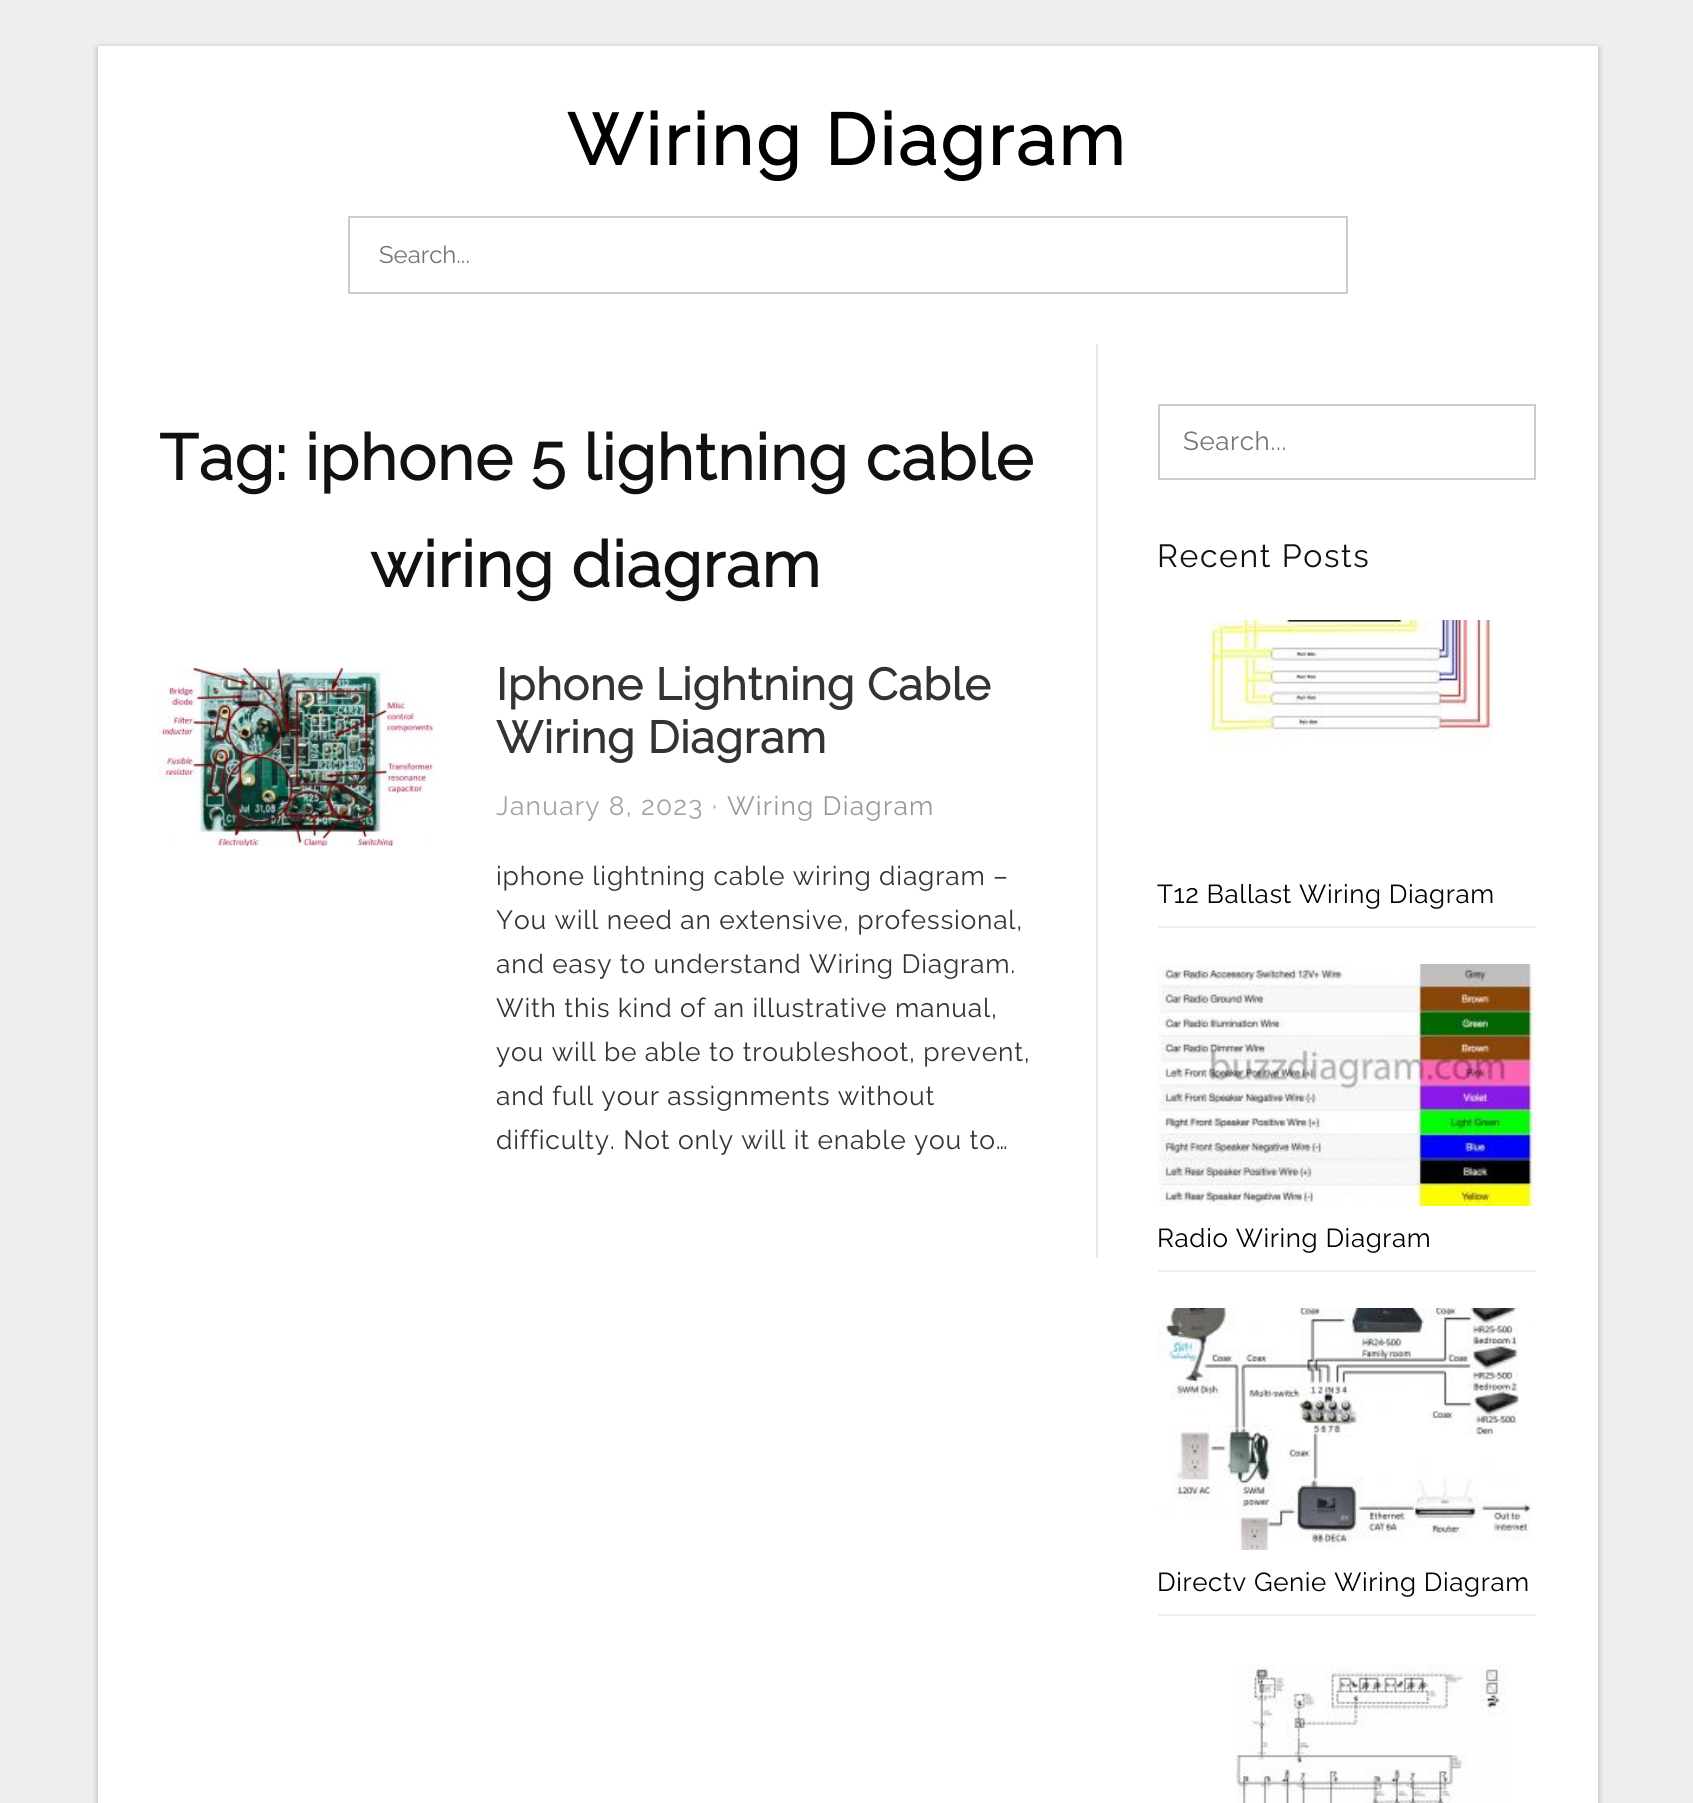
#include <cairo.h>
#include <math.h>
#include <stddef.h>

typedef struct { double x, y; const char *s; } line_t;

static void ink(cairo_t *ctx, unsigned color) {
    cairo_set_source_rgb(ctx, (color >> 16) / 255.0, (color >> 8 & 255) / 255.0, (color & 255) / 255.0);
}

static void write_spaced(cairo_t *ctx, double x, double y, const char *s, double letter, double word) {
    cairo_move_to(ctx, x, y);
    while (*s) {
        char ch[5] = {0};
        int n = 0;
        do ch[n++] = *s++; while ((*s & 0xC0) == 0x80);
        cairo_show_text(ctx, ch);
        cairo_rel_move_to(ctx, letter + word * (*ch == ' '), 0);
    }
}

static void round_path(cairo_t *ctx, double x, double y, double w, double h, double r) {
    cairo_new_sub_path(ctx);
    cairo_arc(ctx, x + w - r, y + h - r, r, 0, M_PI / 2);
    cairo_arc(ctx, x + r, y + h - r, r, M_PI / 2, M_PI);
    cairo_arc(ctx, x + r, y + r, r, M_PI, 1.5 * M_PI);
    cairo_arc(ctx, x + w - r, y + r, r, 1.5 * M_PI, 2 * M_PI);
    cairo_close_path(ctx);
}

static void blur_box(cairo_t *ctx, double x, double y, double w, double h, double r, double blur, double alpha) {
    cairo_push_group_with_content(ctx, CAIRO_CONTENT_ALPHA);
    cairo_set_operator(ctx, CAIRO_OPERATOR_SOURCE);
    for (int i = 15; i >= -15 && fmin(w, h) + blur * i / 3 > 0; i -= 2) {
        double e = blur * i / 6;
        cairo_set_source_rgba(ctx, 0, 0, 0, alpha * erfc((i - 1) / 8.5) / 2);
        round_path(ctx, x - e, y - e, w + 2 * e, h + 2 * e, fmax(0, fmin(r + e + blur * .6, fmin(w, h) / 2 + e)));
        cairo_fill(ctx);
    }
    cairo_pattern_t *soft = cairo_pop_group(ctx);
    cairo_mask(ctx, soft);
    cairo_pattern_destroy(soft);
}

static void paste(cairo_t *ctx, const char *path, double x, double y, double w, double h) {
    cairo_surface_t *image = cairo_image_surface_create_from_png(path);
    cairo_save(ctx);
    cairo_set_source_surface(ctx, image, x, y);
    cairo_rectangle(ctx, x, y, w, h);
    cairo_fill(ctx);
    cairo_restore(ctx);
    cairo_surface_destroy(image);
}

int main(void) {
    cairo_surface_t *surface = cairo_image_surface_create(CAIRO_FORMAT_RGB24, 1693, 1803);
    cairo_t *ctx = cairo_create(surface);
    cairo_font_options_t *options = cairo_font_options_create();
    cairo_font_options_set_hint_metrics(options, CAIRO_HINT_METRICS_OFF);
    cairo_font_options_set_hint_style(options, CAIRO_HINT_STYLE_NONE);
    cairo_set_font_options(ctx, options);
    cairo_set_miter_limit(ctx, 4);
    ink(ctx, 0xEEEEEE);
    cairo_paint(ctx);
    ink(ctx, 0x000000);
    blur_box(ctx, 98, 48, 1500, 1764, 0, 3, 0.3);
    ink(ctx, 0xFFFFFF);
    cairo_rectangle(ctx, 98, 46, 1500, 1757);
    cairo_fill(ctx);
    cairo_select_font_face(ctx, "Raleway", CAIRO_FONT_SLANT_NORMAL, CAIRO_FONT_WEIGHT_BOLD);
    cairo_set_font_size(ctx, 72);
    ink(ctx, 0x000000);
    write_spaced(ctx, 567, 165, "Wiring Diagram", 3, 0);
    cairo_rectangle(ctx, 349, 217, 998, 76);
    ink(ctx, 0xCCCCCC);
    cairo_stroke(ctx);
    cairo_select_font_face(ctx, "Raleway Thin", CAIRO_FONT_SLANT_NORMAL, CAIRO_FONT_WEIGHT_NORMAL);
    cairo_set_font_size(ctx, 24);
    ink(ctx, 0x757575);
    cairo_move_to(ctx, 379, 263);
    cairo_show_text(ctx, "Search...");
    ink(ctx, 0xE8E8E8);
    cairo_rectangle(ctx, 1096, 344, 2, 914);
    cairo_fill(ctx);
    cairo_select_font_face(ctx, "Raleway", CAIRO_FONT_SLANT_NORMAL, CAIRO_FONT_WEIGHT_BOLD);
    cairo_set_font_size(ctx, 64);
    ink(ctx, 0x111111);
    write_spaced(ctx, 159, 480, "Tag: iphone 5 lightning cable", 0.8, 0);
    write_spaced(ctx, 370, 587, "wiring diagram", 0.8, 0);
    paste(ctx, "media/1.png", 158, 668, 278, 178);
    cairo_set_font_size(ctx, 44.75);
    ink(ctx, 0x333333);
    write_spaced(ctx, 496, 700, "Iphone Lightning Cable", 0.6, 0);
    write_spaced(ctx, 496, 753, "Wiring Diagram", 0.6, 0);
    cairo_select_font_face(ctx, "Raleway Thin", CAIRO_FONT_SLANT_NORMAL, CAIRO_FONT_WEIGHT_NORMAL);
    cairo_set_font_size(ctx, 26.4);
    ink(ctx, 0xA2A2A2);
    write_spaced(ctx, 496, 815, "January 8, 2023", 1.25, 0);
    write_spaced(ctx, 712, 815, "·", 1.25, 0);
    ink(ctx, 0x999999);
    write_spaced(ctx, 727, 815, "Wiring Diagram", 1.25, 0);
    ink(ctx, 0x333333);
    {
        static const line_t items[] = {
            {496, 885, "iphone lightning cable wiring diagram –"},
            {496, 929, "You will need an extensive, professional,"},
            {496, 973, "and easy to understand Wiring Diagram."},
            {496, 1017, "With this kind of an illustrative manual,"},
            {496, 1061, "you will be able to troubleshoot, prevent,"},
            {496, 1105, "and full your assignments without"},
            {496, 1149, "difficulty. Not only will it enable you to…"},
        };
        for (size_t i = 0; i < sizeof items / sizeof *items; i++) {
            write_spaced(ctx, items[i].x, items[i].y, items[i].s, 0.8, 0);
        }
    }
    cairo_rectangle(ctx, 1159, 405, 376, 74);
    ink(ctx, 0xCCCCCC);
    cairo_stroke(ctx);
    cairo_set_font_size(ctx, 26);
    ink(ctx, 0x757575);
    write_spaced(ctx, 1183, 450, "Search...", 0.6, 0);
    cairo_set_font_size(ctx, 32);
    ink(ctx, 0x111111);
    write_spaced(ctx, 1157, 567, "Recent Posts", 1.6, 0);
    ink(ctx, 0xEEEEEE);
    cairo_rectangle(ctx, 1158, 926, 378, 2);
    cairo_fill(ctx);
    paste(ctx, "media/2.png", 1207, 620, 287, 130);
    cairo_set_font_size(ctx, 26);
    ink(ctx, 0x000000);
    write_spaced(ctx, 1157, 903, "T12 Ballast Wiring Diagram", 0.6, 0);
    ink(ctx, 0xEEEEEE);
    cairo_rectangle(ctx, 1158, 1270, 378, 2);
    cairo_fill(ctx);
    paste(ctx, "media/3.png", 1158, 964, 378, 242);
    ink(ctx, 0x000000);
    write_spaced(ctx, 1157, 1247, "Radio Wiring Diagram", 0.6, 0);
    ink(ctx, 0xEEEEEE);
    cairo_rectangle(ctx, 1158, 1614, 378, 2);
    cairo_fill(ctx);
    paste(ctx, "media/4.png", 1158, 1308, 374, 242);
    ink(ctx, 0x000000);
    write_spaced(ctx, 1157, 1591, "Directv Genie Wiring Diagram", 0.6, 0);
    paste(ctx, "media/5.png", 1235, 1665, 271, 138);
    cairo_surface_write_to_png(surface, "image.png");
    cairo_font_options_destroy(options);
    cairo_destroy(ctx);
    cairo_surface_destroy(surface);
    return 0;
}
